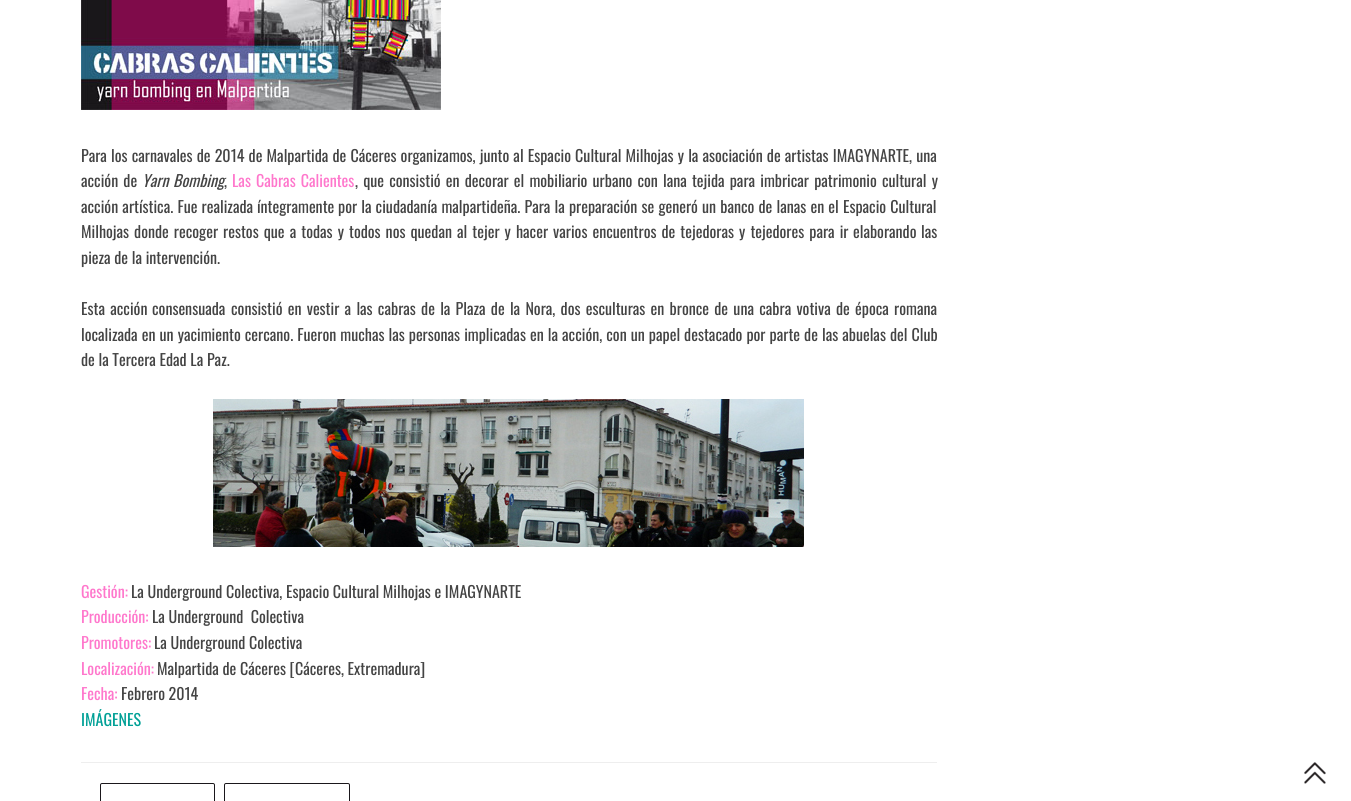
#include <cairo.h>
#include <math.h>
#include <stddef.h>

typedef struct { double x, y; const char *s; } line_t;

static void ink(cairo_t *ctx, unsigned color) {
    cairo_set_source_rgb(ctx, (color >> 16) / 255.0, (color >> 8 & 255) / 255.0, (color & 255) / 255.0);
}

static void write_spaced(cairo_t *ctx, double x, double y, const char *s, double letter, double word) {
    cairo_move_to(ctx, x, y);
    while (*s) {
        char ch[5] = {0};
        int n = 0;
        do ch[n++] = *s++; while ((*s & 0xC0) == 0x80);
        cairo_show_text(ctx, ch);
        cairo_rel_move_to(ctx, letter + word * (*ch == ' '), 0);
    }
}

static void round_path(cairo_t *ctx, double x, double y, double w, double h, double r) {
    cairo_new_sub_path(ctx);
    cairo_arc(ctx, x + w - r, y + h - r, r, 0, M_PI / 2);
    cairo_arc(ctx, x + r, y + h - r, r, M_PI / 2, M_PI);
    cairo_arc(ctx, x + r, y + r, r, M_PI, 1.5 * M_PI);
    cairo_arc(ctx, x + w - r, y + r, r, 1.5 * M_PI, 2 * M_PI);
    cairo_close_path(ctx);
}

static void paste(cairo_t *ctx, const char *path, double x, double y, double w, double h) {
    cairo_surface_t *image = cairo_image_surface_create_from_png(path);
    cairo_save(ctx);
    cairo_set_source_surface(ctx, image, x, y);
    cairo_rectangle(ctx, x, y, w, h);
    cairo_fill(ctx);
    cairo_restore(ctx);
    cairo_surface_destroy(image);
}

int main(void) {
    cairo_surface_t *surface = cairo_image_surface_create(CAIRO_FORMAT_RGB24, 1351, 801);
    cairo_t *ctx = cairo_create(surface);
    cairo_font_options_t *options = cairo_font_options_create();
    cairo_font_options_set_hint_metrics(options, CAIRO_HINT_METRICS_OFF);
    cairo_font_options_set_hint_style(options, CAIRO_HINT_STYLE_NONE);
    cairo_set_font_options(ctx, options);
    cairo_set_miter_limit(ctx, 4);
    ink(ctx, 0xFFFFFF);
    cairo_paint(ctx);
    paste(ctx, "media/1.png", 81, 0, 360, 110);
    cairo_select_font_face(ctx, "Oswald", CAIRO_FONT_SLANT_NORMAL, CAIRO_FONT_WEIGHT_NORMAL);
    cairo_set_font_size(ctx, 16);
    ink(ctx, 0x444444);
    write_spaced(ctx, 81, 162, "Para los carnavales de 2014 de Malpartida de Cáceres organizamos, junto al Espacio Cultural Milhojas y la asociación de artistas IMAGYNARTE, una", 0, 0.5);
    write_spaced(ctx, 81, 187, "acción de", 0, 1.5);
    cairo_select_font_face(ctx, "Oswald", CAIRO_FONT_SLANT_ITALIC, CAIRO_FONT_WEIGHT_NORMAL);
    write_spaced(ctx, 142, 187, "Yarn Bombing", 0, 1);
    cairo_select_font_face(ctx, "Oswald", CAIRO_FONT_SLANT_NORMAL, CAIRO_FONT_WEIGHT_NORMAL);
    ink(ctx, 0xFF77CC);
    write_spaced(ctx, 232, 187, "Las Cabras Calientes", 0, 1.5);
    ink(ctx, 0x444444);
    write_spaced(ctx, 355, 187, ", que consistió en decorar el mobiliario urbano con lana tejida para imbricar patrimonio cultural y", 0, 1.5);
    cairo_move_to(ctx, 224, 187);
    cairo_show_text(ctx, ",");
    write_spaced(ctx, 81, 213, "acción artística. Fue realizada", 0, 0.5);
    cairo_move_to(ctx, 257, 213);
    cairo_show_text(ctx, "íntegramente");
    write_spaced(ctx, 338, 213, "por la ciudadanía malpartideña. Para la preparación se generó un banco de lanas en el Espacio Cultural", 0, 0.5);
    write_spaced(ctx, 81, 238, "Milhojas donde recoger restos que a todas y todos nos quedan al tejer y hacer varios encuentros de tejedoras y tejedores para ir", 0, 1.4);
    {
        static const line_t items[] = {
            {853, 238, "elaborando"},
            {921, 238, "las"},
            {81, 264, "pieza de la intervención."},
        };
        for (size_t i = 0; i < sizeof items / sizeof *items; i++) {
            cairo_move_to(ctx, items[i].x, items[i].y);
            cairo_show_text(ctx, items[i].s);
        }
    }
    write_spaced(ctx, 81, 315, "Esta acción", 0, 1.6);
    cairo_move_to(ctx, 152, 315);
    cairo_show_text(ctx, "consensuada");
    write_spaced(ctx, 231, 315, "consistió en vestir a las cabras de la Plaza de la Nora, dos esculturas en bronce de una cabra votiva de época romana", 0, 1.6);
    write_spaced(ctx, 81, 341, "localizada en un yacimiento cercano. Fueron muchas las personas implicadas en la acción, con un papel destacado por parte de las abuelas del Club", 0, 0.4);
    cairo_move_to(ctx, 81, 366);
    cairo_show_text(ctx, "de la Tercera Edad La Paz.");
    paste(ctx, "media/2.png", 213, 399, 591, 148);
    ink(ctx, 0xFF77CC);
    cairo_move_to(ctx, 81, 598);
    cairo_show_text(ctx, "Gestión:");
    ink(ctx, 0x444444);
    cairo_move_to(ctx, 131, 598);
    cairo_show_text(ctx, "La Underground Colectiva, Espacio Cultural Milhojas e IMAGYNARTE");
    ink(ctx, 0xFF77CC);
    cairo_move_to(ctx, 81, 623);
    cairo_show_text(ctx, "Producción:");
    ink(ctx, 0x444444);
    cairo_move_to(ctx, 152, 623);
    cairo_show_text(ctx, "La Underground  Colectiva");
    ink(ctx, 0xFF77CC);
    cairo_move_to(ctx, 81, 649);
    cairo_show_text(ctx, "Promotores:");
    ink(ctx, 0x444444);
    cairo_move_to(ctx, 154, 649);
    cairo_show_text(ctx, "La Underground Colectiva");
    ink(ctx, 0xFF77CC);
    cairo_move_to(ctx, 81, 675);
    cairo_show_text(ctx, "Localización:");
    ink(ctx, 0x444444);
    cairo_move_to(ctx, 157, 675);
    cairo_show_text(ctx, "Malpartida de Cáceres [Cáceres, Extremadura]");
    ink(ctx, 0xFF77CC);
    cairo_move_to(ctx, 81, 700);
    cairo_show_text(ctx, "Fecha:");
    ink(ctx, 0x444444);
    cairo_move_to(ctx, 121, 700);
    cairo_show_text(ctx, "Febrero 2014");
    ink(ctx, 0x00A096);
    cairo_move_to(ctx, 81, 726);
    cairo_show_text(ctx, "IMÁGENES");
    ink(ctx, 0xEEEEEE);
    cairo_rectangle(ctx, 81, 762, 856, 1);
    cairo_fill(ctx);
    round_path(ctx, 100.5, 783.5, 114, 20, 1.5);
    ink(ctx, 0x1A171B);
    cairo_set_line_width(ctx, 1);
    cairo_stroke(ctx);
    round_path(ctx, 224.5, 783.5, 125, 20, 1.5);
    cairo_stroke(ctx);
    paste(ctx, "media/3.png", 1304, 762, 22, 22);
    cairo_surface_write_to_png(surface, "image.png");
    cairo_font_options_destroy(options);
    cairo_destroy(ctx);
    cairo_surface_destroy(surface);
    return 0;
}
